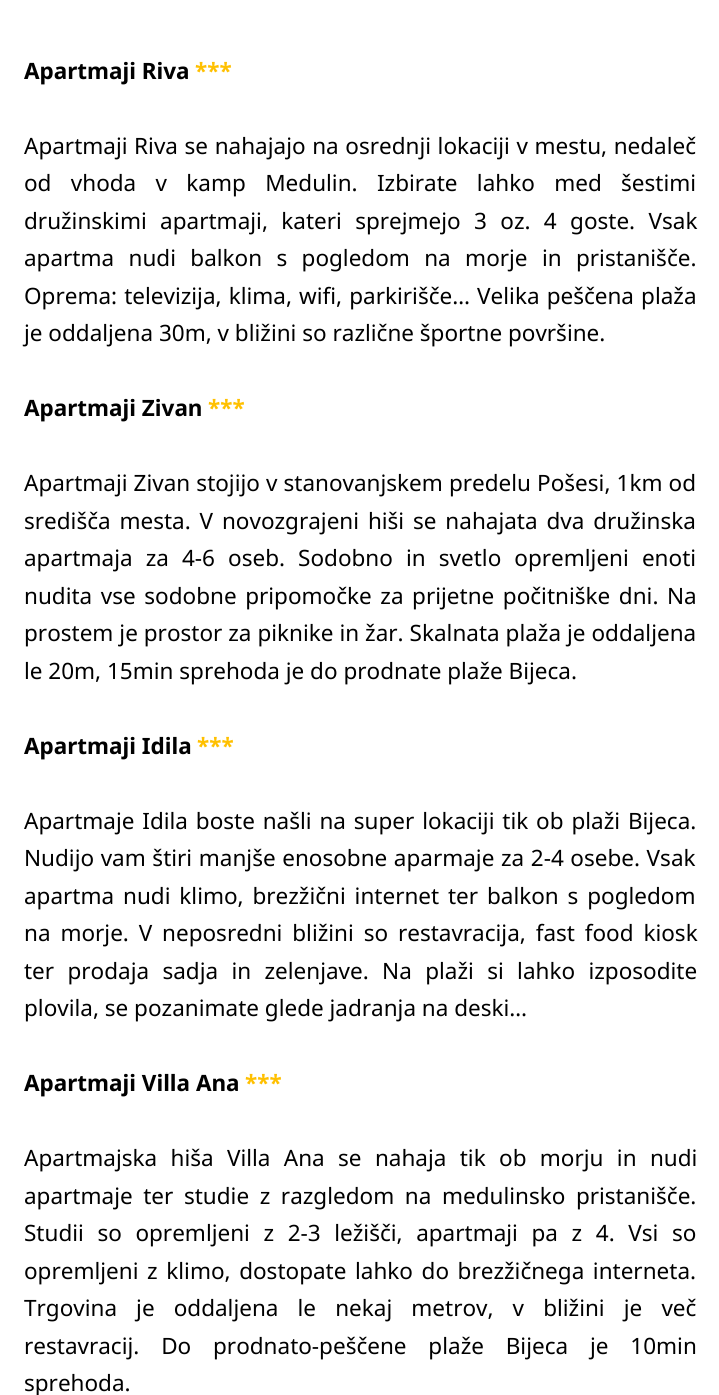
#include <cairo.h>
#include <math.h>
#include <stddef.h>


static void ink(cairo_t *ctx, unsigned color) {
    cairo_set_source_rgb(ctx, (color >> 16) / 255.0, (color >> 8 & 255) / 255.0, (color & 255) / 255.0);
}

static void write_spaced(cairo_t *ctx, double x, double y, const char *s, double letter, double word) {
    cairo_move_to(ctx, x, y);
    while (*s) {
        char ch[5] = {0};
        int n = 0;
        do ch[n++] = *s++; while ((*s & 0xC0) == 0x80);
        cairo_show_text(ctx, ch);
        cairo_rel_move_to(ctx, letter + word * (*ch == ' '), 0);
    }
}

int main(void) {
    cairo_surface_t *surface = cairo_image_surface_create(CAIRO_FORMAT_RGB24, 719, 1395);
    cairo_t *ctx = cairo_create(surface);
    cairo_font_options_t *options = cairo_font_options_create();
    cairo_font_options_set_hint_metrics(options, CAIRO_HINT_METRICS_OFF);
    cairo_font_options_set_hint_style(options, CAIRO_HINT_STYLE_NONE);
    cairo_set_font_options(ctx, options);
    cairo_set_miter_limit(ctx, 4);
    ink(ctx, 0xFFFFFF);
    cairo_paint(ctx);
    cairo_select_font_face(ctx, "Noto Sans", CAIRO_FONT_SLANT_NORMAL, CAIRO_FONT_WEIGHT_BOLD);
    cairo_set_font_size(ctx, 22.5);
    ink(ctx, 0x000000);
    cairo_move_to(ctx, 24, 79);
    cairo_show_text(ctx, "Apartmaji Riva");
    ink(ctx, 0xFFC000);
    cairo_move_to(ctx, 195, 79);
    cairo_show_text(ctx, "***");
    cairo_select_font_face(ctx, "Noto Sans", CAIRO_FONT_SLANT_NORMAL, CAIRO_FONT_WEIGHT_NORMAL);
    ink(ctx, 0x000000);
    write_spaced(ctx, 24, 154, "Apartmaji Riva se nahajajo na osrednji lokaciji v mestu, nedaleč", 0, 0.75);
    write_spaced(ctx, 24, 191, "od vhoda v kamp Medulin. Izbirate lahko med šestimi", 0, 13.5);
    write_spaced(ctx, 24, 229, "družinskimi apartmaji, kateri sprejmejo 3 oz. 4 goste. Vsak", 0, 7.5);
    write_spaced(ctx, 24, 266, "apartma nudi balkon s pogledom na morje in pristanišče.", 0, 8.5);
    write_spaced(ctx, 24, 304, "Oprema: televizija, klima, wifi, parkirišče… Velika peščena plaža", 0, 1.25);
    cairo_move_to(ctx, 24, 341);
    cairo_show_text(ctx, "je oddaljena 30m, v bližini so različne športne površine.");
    cairo_select_font_face(ctx, "Noto Sans", CAIRO_FONT_SLANT_NORMAL, CAIRO_FONT_WEIGHT_BOLD);
    cairo_move_to(ctx, 24, 416);
    cairo_show_text(ctx, "Apartmaji Zivan");
    ink(ctx, 0xFFC000);
    cairo_move_to(ctx, 208, 416);
    cairo_show_text(ctx, "***");
    cairo_select_font_face(ctx, "Noto Sans", CAIRO_FONT_SLANT_NORMAL, CAIRO_FONT_WEIGHT_NORMAL);
    ink(ctx, 0x000000);
    write_spaced(ctx, 24, 491, "Apartmaji Zivan stojijo v stanovanjskem predelu Pošesi, 1km od", 0, 0.25);
    write_spaced(ctx, 24, 529, "središča mesta. V novozgrajeni hiši se nahajata dva družinska", 0, 3);
    write_spaced(ctx, 24, 566, "apartmaja za 4-6 oseb. Sodobno in svetlo opremljeni enoti", 0, 7.25);
    write_spaced(ctx, 24, 604, "nudita vse sodobne pripomočke za prijetne počitniške dni. Na", 0, 2.75);
    write_spaced(ctx, 24, 641, "prostem je prostor za piknike in žar. Skalnata plaža je oddaljena", 0, 0.1);
    cairo_move_to(ctx, 24, 679);
    cairo_show_text(ctx, "le 20m, 15min sprehoda je do prodnate plaže Bijeca.");
    cairo_select_font_face(ctx, "Noto Sans", CAIRO_FONT_SLANT_NORMAL, CAIRO_FONT_WEIGHT_BOLD);
    cairo_move_to(ctx, 24, 754);
    cairo_show_text(ctx, "Apartmaji Idila");
    ink(ctx, 0xFFC000);
    cairo_move_to(ctx, 197, 754);
    cairo_show_text(ctx, "***");
    cairo_select_font_face(ctx, "Noto Sans", CAIRO_FONT_SLANT_NORMAL, CAIRO_FONT_WEIGHT_NORMAL);
    ink(ctx, 0x000000);
    write_spaced(ctx, 24, 829, "Apartmaje Idila boste našli na super lokaciji tik ob plaži Bijeca.", 0, 2);
    write_spaced(ctx, 24, 866, "Nudijo vam štiri manjše enosobne aparmaje za 2-4 osebe. Vsak", 0, 0.75);
    write_spaced(ctx, 24, 904, "apartma nudi klimo, brezžični internet ter balkon s pogledom", 0, 3);
    write_spaced(ctx, 24, 941, "na morje. V neposredni bližini so restavracija, fast food kiosk", 0, 4);
    write_spaced(ctx, 24, 979, "ter prodaja sadja in zelenjave. Na plaži si lahko izposodite", 0, 7.5);
    cairo_move_to(ctx, 24, 1016);
    cairo_show_text(ctx, "plovila, se pozanimate glede jadranja na deski…");
    cairo_select_font_face(ctx, "Noto Sans", CAIRO_FONT_SLANT_NORMAL, CAIRO_FONT_WEIGHT_BOLD);
    cairo_move_to(ctx, 24, 1091);
    cairo_show_text(ctx, "Apartmaji Villa Ana");
    ink(ctx, 0xFFC000);
    cairo_move_to(ctx, 245, 1091);
    cairo_show_text(ctx, "***");
    cairo_select_font_face(ctx, "Noto Sans", CAIRO_FONT_SLANT_NORMAL, CAIRO_FONT_WEIGHT_NORMAL);
    ink(ctx, 0x000000);
    write_spaced(ctx, 24, 1166, "Apartmajska hiša Villa Ana se nahaja tik ob morju in nudi", 0, 7.5);
    write_spaced(ctx, 24, 1204, "apartmaje ter studie z razgledom na medulinsko pristanišče.", 0, 4.75);
    write_spaced(ctx, 24, 1241, "Studii so opremljeni z 2-3 ležišči, apartmaji pa z 4. Vsi so", 0, 7.75);
    write_spaced(ctx, 24, 1279, "opremljeni z klimo, dostopate lahko do brezžičnega interneta.", 0, 2.75);
    write_spaced(ctx, 24, 1316, "Trgovina je oddaljena le nekaj metrov, v bližini je več", 0, 13.25);
    write_spaced(ctx, 24, 1354, "restavracij. Do prodnato-peščene plaže Bijeca je 10min", 0, 16);
    cairo_move_to(ctx, 24, 1391);
    cairo_show_text(ctx, "sprehoda.");
    cairo_surface_write_to_png(surface, "image.png");
    cairo_font_options_destroy(options);
    cairo_destroy(ctx);
    cairo_surface_destroy(surface);
    return 0;
}
